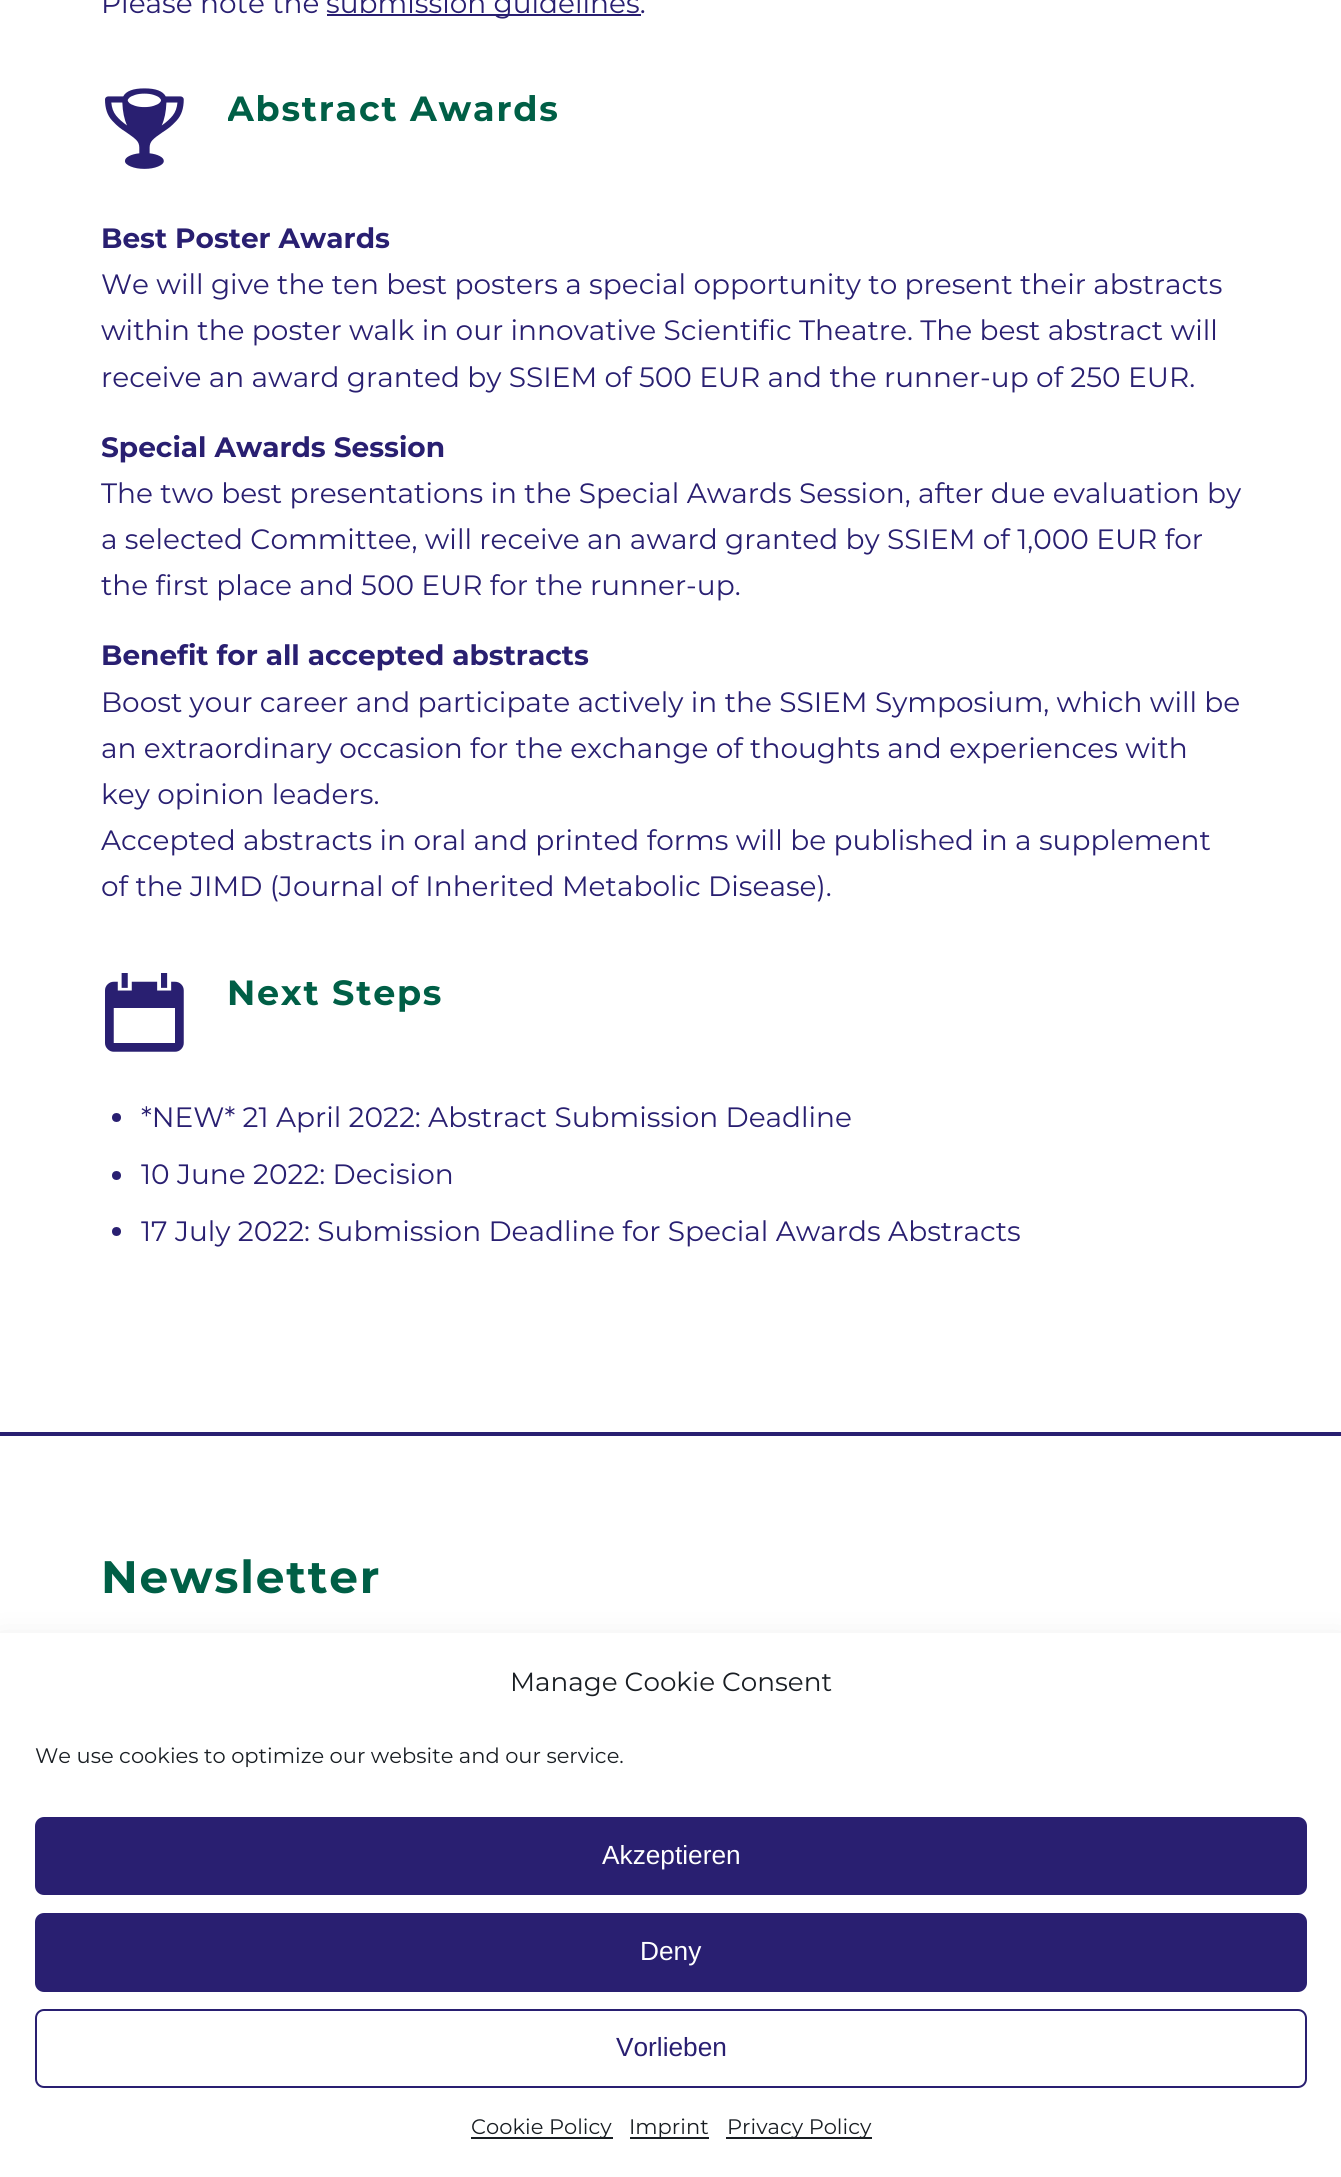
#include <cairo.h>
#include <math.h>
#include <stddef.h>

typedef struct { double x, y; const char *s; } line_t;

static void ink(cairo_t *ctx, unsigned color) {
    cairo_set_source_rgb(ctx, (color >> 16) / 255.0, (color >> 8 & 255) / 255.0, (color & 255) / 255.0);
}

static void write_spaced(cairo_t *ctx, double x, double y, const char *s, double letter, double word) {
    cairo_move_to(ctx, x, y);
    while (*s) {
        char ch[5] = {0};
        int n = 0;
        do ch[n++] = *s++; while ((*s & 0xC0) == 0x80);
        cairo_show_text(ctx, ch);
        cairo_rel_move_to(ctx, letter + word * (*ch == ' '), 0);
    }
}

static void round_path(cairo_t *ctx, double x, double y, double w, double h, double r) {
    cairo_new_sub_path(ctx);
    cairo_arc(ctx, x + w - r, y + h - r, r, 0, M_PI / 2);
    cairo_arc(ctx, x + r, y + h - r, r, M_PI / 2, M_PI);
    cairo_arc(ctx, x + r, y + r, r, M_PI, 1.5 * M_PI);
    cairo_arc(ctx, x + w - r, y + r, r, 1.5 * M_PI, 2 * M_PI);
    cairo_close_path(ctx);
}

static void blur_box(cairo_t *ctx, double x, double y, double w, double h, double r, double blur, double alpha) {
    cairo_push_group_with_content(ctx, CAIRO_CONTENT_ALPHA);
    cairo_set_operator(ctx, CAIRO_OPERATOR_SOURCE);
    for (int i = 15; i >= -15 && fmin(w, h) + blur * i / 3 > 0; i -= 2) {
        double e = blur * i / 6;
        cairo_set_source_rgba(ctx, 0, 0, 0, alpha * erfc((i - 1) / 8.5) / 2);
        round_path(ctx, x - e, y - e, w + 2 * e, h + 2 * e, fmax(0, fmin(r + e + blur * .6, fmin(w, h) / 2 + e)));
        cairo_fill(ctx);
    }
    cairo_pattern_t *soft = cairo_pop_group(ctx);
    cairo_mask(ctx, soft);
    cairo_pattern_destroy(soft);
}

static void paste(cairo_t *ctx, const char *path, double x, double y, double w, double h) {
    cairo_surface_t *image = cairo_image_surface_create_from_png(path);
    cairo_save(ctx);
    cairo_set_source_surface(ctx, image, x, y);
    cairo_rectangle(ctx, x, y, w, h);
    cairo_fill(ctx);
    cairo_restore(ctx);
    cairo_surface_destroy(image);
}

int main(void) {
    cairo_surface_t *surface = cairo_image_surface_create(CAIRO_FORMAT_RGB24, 1341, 2177);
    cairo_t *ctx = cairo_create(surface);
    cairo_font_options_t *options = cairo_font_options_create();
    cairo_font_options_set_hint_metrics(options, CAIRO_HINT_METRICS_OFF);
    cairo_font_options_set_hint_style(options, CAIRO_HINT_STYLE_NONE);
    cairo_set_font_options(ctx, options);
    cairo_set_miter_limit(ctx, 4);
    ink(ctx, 0xFFFFFF);
    cairo_paint(ctx);
    cairo_select_font_face(ctx, "Montserrat", CAIRO_FONT_SLANT_NORMAL, CAIRO_FONT_WEIGHT_NORMAL);
    cairo_set_font_size(ctx, 28);
    ink(ctx, 0x291F71);
    cairo_move_to(ctx, 101, 13);
    cairo_show_text(ctx, "Please note the");
    cairo_rectangle(ctx, 327, 14, 314, 2);
    cairo_fill(ctx);
    cairo_move_to(ctx, 326, 13);
    cairo_show_text(ctx, "submission guidelines.");
    paste(ctx, "media/1.png", 105, 88, 79, 81);
    cairo_save(ctx);
    cairo_rectangle(ctx, 228, 86, 1013, 45);
    cairo_clip(ctx);
    cairo_select_font_face(ctx, "Montserrat", CAIRO_FONT_SLANT_NORMAL, CAIRO_FONT_WEIGHT_BOLD);
    cairo_set_font_size(ctx, 35);
    ink(ctx, 0x005F46);
    write_spaced(ctx, 227, 121, "Abstract Awards", 1.75, 0);
    cairo_restore(ctx);
    cairo_select_font_face(ctx, "Montserrat", CAIRO_FONT_SLANT_NORMAL, CAIRO_FONT_WEIGHT_BOLD);
    cairo_move_to(ctx, 101, 248);
    cairo_show_text(ctx, "Best Poster Awards");
    cairo_select_font_face(ctx, "Montserrat", CAIRO_FONT_SLANT_NORMAL, CAIRO_FONT_WEIGHT_NORMAL);
    {
        static const line_t items[] = {
            {101, 294, "We will give the ten best posters a special opportunity to present their abstracts"},
            {101, 340, "within the poster walk in our innovative Scientific Theatre. The best abstract will"},
            {101, 387, "receive an award granted by SSIEM of 500 EUR and the runner-up of 250 EUR."},
        };
        for (size_t i = 0; i < sizeof items / sizeof *items; i++) {
            cairo_move_to(ctx, items[i].x, items[i].y);
            cairo_show_text(ctx, items[i].s);
        }
    }
    cairo_select_font_face(ctx, "Montserrat", CAIRO_FONT_SLANT_NORMAL, CAIRO_FONT_WEIGHT_BOLD);
    cairo_move_to(ctx, 101, 457);
    cairo_show_text(ctx, "Special Awards Session");
    cairo_select_font_face(ctx, "Montserrat", CAIRO_FONT_SLANT_NORMAL, CAIRO_FONT_WEIGHT_NORMAL);
    {
        static const line_t items[] = {
            {101, 503, "The two best presentations in the Special Awards Session, after due evaluation by"},
            {101, 549, "a selected Committee, will receive an award granted by SSIEM of 1,000 EUR for"},
            {101, 595, "the first place and 500 EUR for the runner-up."},
        };
        for (size_t i = 0; i < sizeof items / sizeof *items; i++) {
            cairo_move_to(ctx, items[i].x, items[i].y);
            cairo_show_text(ctx, items[i].s);
        }
    }
    cairo_select_font_face(ctx, "Montserrat", CAIRO_FONT_SLANT_NORMAL, CAIRO_FONT_WEIGHT_BOLD);
    cairo_move_to(ctx, 101, 665);
    cairo_show_text(ctx, "Benefit for all accepted abstracts");
    cairo_select_font_face(ctx, "Montserrat", CAIRO_FONT_SLANT_NORMAL, CAIRO_FONT_WEIGHT_NORMAL);
    {
        static const line_t items[] = {
            {101, 712, "Boost your career and participate actively in the SSIEM Symposium, which will be"},
            {101, 758, "an extraordinary occasion for the exchange of thoughts and experiences with"},
            {101, 804, "key opinion leaders."},
            {101, 850, "Accepted abstracts in oral and printed forms will be published in a supplement"},
            {101, 896, "of the JIMD (Journal of Inherited Metabolic Disease)."},
        };
        for (size_t i = 0; i < sizeof items / sizeof *items; i++) {
            cairo_move_to(ctx, items[i].x, items[i].y);
            cairo_show_text(ctx, items[i].s);
        }
    }
    paste(ctx, "media/2.png", 105, 973, 79, 79);
    cairo_select_font_face(ctx, "Montserrat", CAIRO_FONT_SLANT_NORMAL, CAIRO_FONT_WEIGHT_BOLD);
    cairo_set_font_size(ctx, 35);
    ink(ctx, 0x005F46);
    write_spaced(ctx, 227, 1005, "Next Steps", 1.75, 0);
    ink(ctx, 0x291F71);
    cairo_new_path(ctx);
    cairo_arc(ctx, 116.5, 1117.5, 4.5, 0, 2 * M_PI);
    cairo_fill(ctx);
    cairo_select_font_face(ctx, "Montserrat", CAIRO_FONT_SLANT_NORMAL, CAIRO_FONT_WEIGHT_NORMAL);
    cairo_set_font_size(ctx, 28);
    cairo_move_to(ctx, 141, 1127);
    cairo_show_text(ctx, "*NEW* 21 April 2022: Abstract Submission Deadline");
    cairo_new_path(ctx);
    cairo_arc(ctx, 116.5, 1175.5, 4.5, 0, 2 * M_PI);
    cairo_fill(ctx);
    cairo_move_to(ctx, 141, 1184);
    cairo_show_text(ctx, "10 June 2022: Decision");
    cairo_new_path(ctx);
    cairo_arc(ctx, 116.5, 1231.5, 4.5, 0, 2 * M_PI);
    cairo_fill(ctx);
    cairo_move_to(ctx, 141, 1241);
    cairo_show_text(ctx, "17 July 2022: Submission Deadline for Special Awards Abstracts");
    cairo_rectangle(ctx, 0, 1432, 1341, 4);
    cairo_fill(ctx);
    cairo_select_font_face(ctx, "Montserrat", CAIRO_FONT_SLANT_NORMAL, CAIRO_FONT_WEIGHT_BOLD);
    cairo_set_font_size(ctx, 45.5);
    ink(ctx, 0x005F46);
    write_spaced(ctx, 101, 1593, "Newsletter", 1.75, 0);
    ink(ctx, 0x000000);
    blur_box(ctx, 0, 1650, 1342, 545, 0, 17.5, 0.19);
    ink(ctx, 0xFFFFFF);
    cairo_rectangle(ctx, 0, 1633, 1341, 544);
    cairo_fill(ctx);
    cairo_select_font_face(ctx, "Montserrat", CAIRO_FONT_SLANT_NORMAL, CAIRO_FONT_WEIGHT_NORMAL);
    cairo_set_font_size(ctx, 26.25);
    ink(ctx, 0x191E23);
    cairo_move_to(ctx, 510, 1691);
    cairo_show_text(ctx, "Manage Cookie Consent");
    cairo_set_font_size(ctx, 21);
    cairo_move_to(ctx, 35, 1763);
    cairo_show_text(ctx, "We use cookies to optimize our website and our service.");
    ink(ctx, 0x291F71);
    round_path(ctx, 36, 1818, 1270, 76, 8);
    cairo_fill_preserve(ctx);
    cairo_stroke(ctx);
    cairo_select_font_face(ctx, "Liberation Sans", CAIRO_FONT_SLANT_NORMAL, CAIRO_FONT_WEIGHT_NORMAL);
    cairo_set_font_size(ctx, 26.25);
    ink(ctx, 0xFFFFFF);
    cairo_move_to(ctx, 602, 1864);
    cairo_show_text(ctx, "Akzeptieren");
    ink(ctx, 0x291F71);
    round_path(ctx, 36, 1914, 1270, 77, 8);
    cairo_fill_preserve(ctx);
    cairo_stroke(ctx);
    ink(ctx, 0xFFFFFF);
    cairo_move_to(ctx, 640, 1960);
    cairo_show_text(ctx, "Deny");
    round_path(ctx, 36, 2010, 1270, 77, 8);
    ink(ctx, 0x291F71);
    cairo_stroke(ctx);
    cairo_move_to(ctx, 616, 2056);
    cairo_show_text(ctx, "Vorlieben");
    ink(ctx, 0x191E23);
    cairo_rectangle(ctx, 471, 2137, 142, 2);
    cairo_fill(ctx);
    cairo_select_font_face(ctx, "Montserrat", CAIRO_FONT_SLANT_NORMAL, CAIRO_FONT_WEIGHT_NORMAL);
    cairo_set_font_size(ctx, 21);
    cairo_move_to(ctx, 471, 2134);
    cairo_show_text(ctx, "Cookie Policy");
    cairo_rectangle(ctx, 630, 2137, 79, 2);
    cairo_fill(ctx);
    cairo_move_to(ctx, 629, 2134);
    cairo_show_text(ctx, "Imprint");
    cairo_rectangle(ctx, 726, 2137, 146, 2);
    cairo_fill(ctx);
    cairo_move_to(ctx, 727, 2134);
    cairo_show_text(ctx, "Privacy Policy");
    cairo_surface_write_to_png(surface, "image.png");
    cairo_font_options_destroy(options);
    cairo_destroy(ctx);
    cairo_surface_destroy(surface);
    return 0;
}
